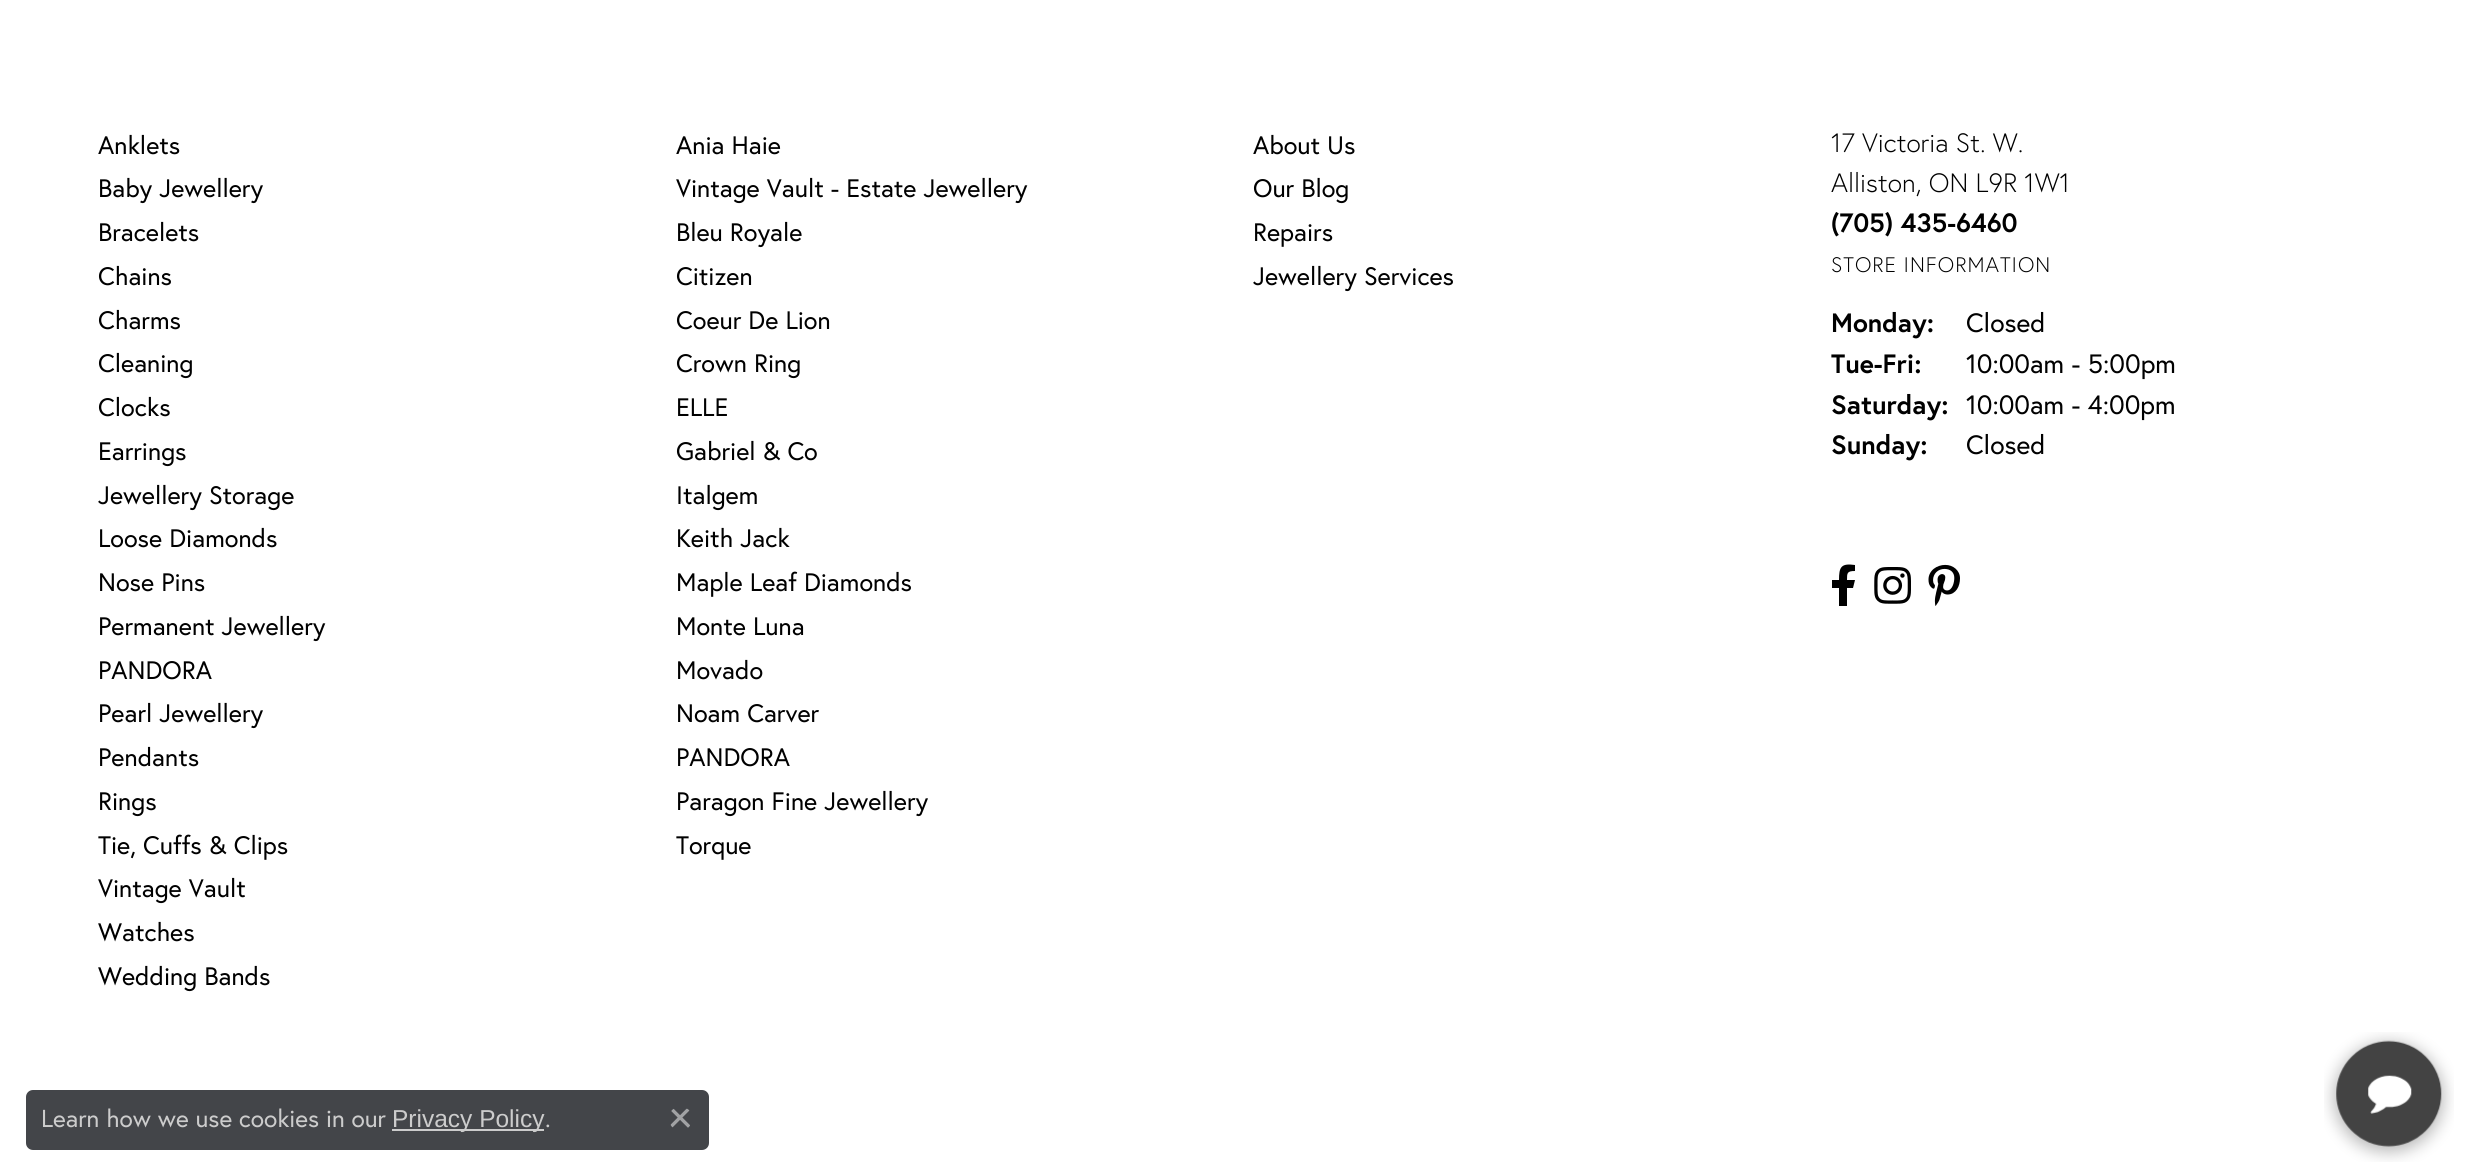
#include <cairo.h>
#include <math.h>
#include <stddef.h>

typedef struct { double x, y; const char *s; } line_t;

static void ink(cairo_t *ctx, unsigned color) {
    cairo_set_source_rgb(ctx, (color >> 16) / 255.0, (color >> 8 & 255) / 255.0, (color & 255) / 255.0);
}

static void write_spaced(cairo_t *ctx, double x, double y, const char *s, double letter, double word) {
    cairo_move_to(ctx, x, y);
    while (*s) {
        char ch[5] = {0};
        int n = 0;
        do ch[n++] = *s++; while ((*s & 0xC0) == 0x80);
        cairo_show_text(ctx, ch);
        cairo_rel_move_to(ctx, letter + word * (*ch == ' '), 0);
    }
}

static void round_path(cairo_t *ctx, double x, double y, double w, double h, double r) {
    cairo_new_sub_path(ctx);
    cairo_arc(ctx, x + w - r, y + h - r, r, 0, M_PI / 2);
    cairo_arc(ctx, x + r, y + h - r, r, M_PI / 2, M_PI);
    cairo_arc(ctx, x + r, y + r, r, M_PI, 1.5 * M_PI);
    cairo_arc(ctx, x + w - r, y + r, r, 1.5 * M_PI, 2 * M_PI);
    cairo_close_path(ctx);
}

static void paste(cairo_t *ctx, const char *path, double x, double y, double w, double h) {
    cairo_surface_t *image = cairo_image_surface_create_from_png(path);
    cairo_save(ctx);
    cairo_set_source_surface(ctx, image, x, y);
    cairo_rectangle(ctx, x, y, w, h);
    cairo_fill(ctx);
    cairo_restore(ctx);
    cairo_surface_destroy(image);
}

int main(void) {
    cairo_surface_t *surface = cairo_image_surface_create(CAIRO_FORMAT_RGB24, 2471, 1176);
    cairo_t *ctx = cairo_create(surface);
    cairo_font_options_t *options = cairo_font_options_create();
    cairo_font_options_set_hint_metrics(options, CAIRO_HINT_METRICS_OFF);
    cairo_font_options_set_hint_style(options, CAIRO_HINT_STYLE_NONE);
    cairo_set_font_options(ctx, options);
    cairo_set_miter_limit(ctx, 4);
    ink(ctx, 0xFFFFFF);
    cairo_paint(ctx);
    cairo_select_font_face(ctx, "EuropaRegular", CAIRO_FONT_SLANT_NORMAL, CAIRO_FONT_WEIGHT_NORMAL);
    cairo_set_font_size(ctx, 25.25);
    ink(ctx, 0x000000);
    {
        static const line_t items[] = {
            {98, 154, "Anklets"},
            {98, 197, "Baby Jewellery"},
            {98, 241, "Bracelets"},
            {98, 285, "Chains"},
            {98, 329, "Charms"},
            {98, 372, "Cleaning"},
            {98, 416, "Clocks"},
            {98, 460, "Earrings"},
            {98, 504, "Jewellery Storage"},
            {98, 547, "Loose Diamonds"},
            {98, 591, "Nose Pins"},
            {98, 635, "Permanent Jewellery"},
            {98, 679, "PANDORA"},
            {98, 722, "Pearl Jewellery"},
            {98, 766, "Pendants"},
            {98, 810, "Rings"},
            {98, 854, "Tie, Cuffs & Clips"},
            {98, 897, "Vintage Vault"},
            {98, 941, "Watches"},
            {98, 985, "Wedding Bands"},
            {676, 154, "Ania Haie"},
            {676, 197, "Vintage Vault - Estate Jewellery"},
            {676, 241, "Bleu Royale"},
            {676, 285, "Citizen"},
            {676, 329, "Coeur De Lion"},
            {676, 372, "Crown Ring"},
            {676, 416, "ELLE"},
            {676, 460, "Gabriel & Co"},
            {676, 504, "Italgem"},
            {676, 547, "Keith Jack"},
            {676, 591, "Maple Leaf Diamonds"},
            {676, 635, "Monte Luna"},
            {676, 679, "Movado"},
            {676, 722, "Noam Carver"},
            {676, 766, "PANDORA"},
            {676, 810, "Paragon Fine Jewellery"},
            {676, 854, "Torque"},
            {1253, 154, "About Us"},
            {1253, 197, "Our Blog"},
            {1253, 241, "Repairs"},
            {1253, 285, "Jewellery Services"},
        };
        for (size_t i = 0; i < sizeof items / sizeof *items; i++) {
            cairo_move_to(ctx, items[i].x, items[i].y);
            cairo_show_text(ctx, items[i].s);
        }
    }
    cairo_select_font_face(ctx, "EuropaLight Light", CAIRO_FONT_SLANT_NORMAL, CAIRO_FONT_WEIGHT_NORMAL);
    cairo_set_font_size(ctx, 26.5);
    cairo_move_to(ctx, 1831, 152);
    cairo_show_text(ctx, "17 Victoria St. W.");
    cairo_move_to(ctx, 1831, 192);
    cairo_show_text(ctx, "Alliston, ON L9R 1W1");
    cairo_select_font_face(ctx, "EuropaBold", CAIRO_FONT_SLANT_NORMAL, CAIRO_FONT_WEIGHT_BOLD);
    cairo_move_to(ctx, 1831, 232);
    cairo_show_text(ctx, "(705) 435-6460");
    cairo_select_font_face(ctx, "EuropaLight Light", CAIRO_FONT_SLANT_NORMAL, CAIRO_FONT_WEIGHT_NORMAL);
    cairo_set_font_size(ctx, 21);
    write_spaced(ctx, 1831, 272, "STORE INFORMATION", 1, 0);
    cairo_select_font_face(ctx, "EuropaBold", CAIRO_FONT_SLANT_NORMAL, CAIRO_FONT_WEIGHT_BOLD);
    cairo_set_font_size(ctx, 26.5);
    cairo_move_to(ctx, 1831, 332);
    cairo_show_text(ctx, "Monday:");
    cairo_select_font_face(ctx, "EuropaRegular", CAIRO_FONT_SLANT_NORMAL, CAIRO_FONT_WEIGHT_NORMAL);
    cairo_move_to(ctx, 1966, 332);
    cairo_show_text(ctx, "Closed");
    cairo_select_font_face(ctx, "EuropaBold", CAIRO_FONT_SLANT_NORMAL, CAIRO_FONT_WEIGHT_BOLD);
    cairo_move_to(ctx, 1831, 373);
    cairo_show_text(ctx, "Tue-Fri:");
    cairo_select_font_face(ctx, "EuropaRegular", CAIRO_FONT_SLANT_NORMAL, CAIRO_FONT_WEIGHT_NORMAL);
    cairo_move_to(ctx, 1966, 373);
    cairo_show_text(ctx, "10:00am - 5:00pm");
    cairo_select_font_face(ctx, "EuropaBold", CAIRO_FONT_SLANT_NORMAL, CAIRO_FONT_WEIGHT_BOLD);
    cairo_move_to(ctx, 1831, 414);
    cairo_show_text(ctx, "Saturday:");
    cairo_select_font_face(ctx, "EuropaRegular", CAIRO_FONT_SLANT_NORMAL, CAIRO_FONT_WEIGHT_NORMAL);
    cairo_move_to(ctx, 1966, 414);
    cairo_show_text(ctx, "10:00am - 4:00pm");
    cairo_select_font_face(ctx, "EuropaBold", CAIRO_FONT_SLANT_NORMAL, CAIRO_FONT_WEIGHT_BOLD);
    cairo_move_to(ctx, 1831, 454);
    cairo_show_text(ctx, "Sunday:");
    cairo_select_font_face(ctx, "EuropaRegular", CAIRO_FONT_SLANT_NORMAL, CAIRO_FONT_WEIGHT_NORMAL);
    cairo_move_to(ctx, 1966, 454);
    cairo_show_text(ctx, "Closed");
    cairo_new_path(ctx);
    cairo_move_to(ctx, 1853, 588);
    cairo_line_to(ctx, 1855, 580);
    cairo_line_to(ctx, 1847, 580);
    cairo_curve_to(ctx, 1847, 573, 1847, 571, 1855, 571);
    cairo_line_to(ctx, 1855, 565);
    cairo_curve_to(ctx, 1841, 563, 1839, 567, 1839, 580);
    cairo_line_to(ctx, 1832, 580);
    cairo_line_to(ctx, 1832, 588);
    cairo_line_to(ctx, 1839, 588);
    cairo_line_to(ctx, 1839, 606);
    cairo_line_to(ctx, 1847, 606);
    cairo_line_to(ctx, 1847, 588);
    cairo_close_path(ctx);
    cairo_fill(ctx);
    paste(ctx, "media/1.png", 1874, 567, 37, 37);
    paste(ctx, "media/2.png", 1928, 564, 32, 42);
    ink(ctx, 0x434549);
    round_path(ctx, 26, 1090, 683, 60, 7);
    cairo_fill(ctx);
    cairo_set_font_size(ctx, 24.5);
    ink(ctx, 0xCCCCCC);
    cairo_move_to(ctx, 41, 1127);
    cairo_show_text(ctx, "Learn how we use cookies in our");
    cairo_rectangle(ctx, 392, 1129, 152, 2);
    cairo_fill(ctx);
    cairo_select_font_face(ctx, "Liberation Sans", CAIRO_FONT_SLANT_NORMAL, CAIRO_FONT_WEIGHT_NORMAL);
    cairo_move_to(ctx, 392, 1127);
    cairo_show_text(ctx, "Privacy Policy");
    cairo_select_font_face(ctx, "EuropaRegular", CAIRO_FONT_SLANT_NORMAL, CAIRO_FONT_WEIGHT_NORMAL);
    cairo_move_to(ctx, 545, 1127);
    cairo_show_text(ctx, ".");
    paste(ctx, "media/3.png", 670, 1108, 20, 20);
    paste(ctx, "media/4.png", 2324, 1032, 130, 130);
    cairo_surface_write_to_png(surface, "image.png");
    cairo_font_options_destroy(options);
    cairo_destroy(ctx);
    cairo_surface_destroy(surface);
    return 0;
}
